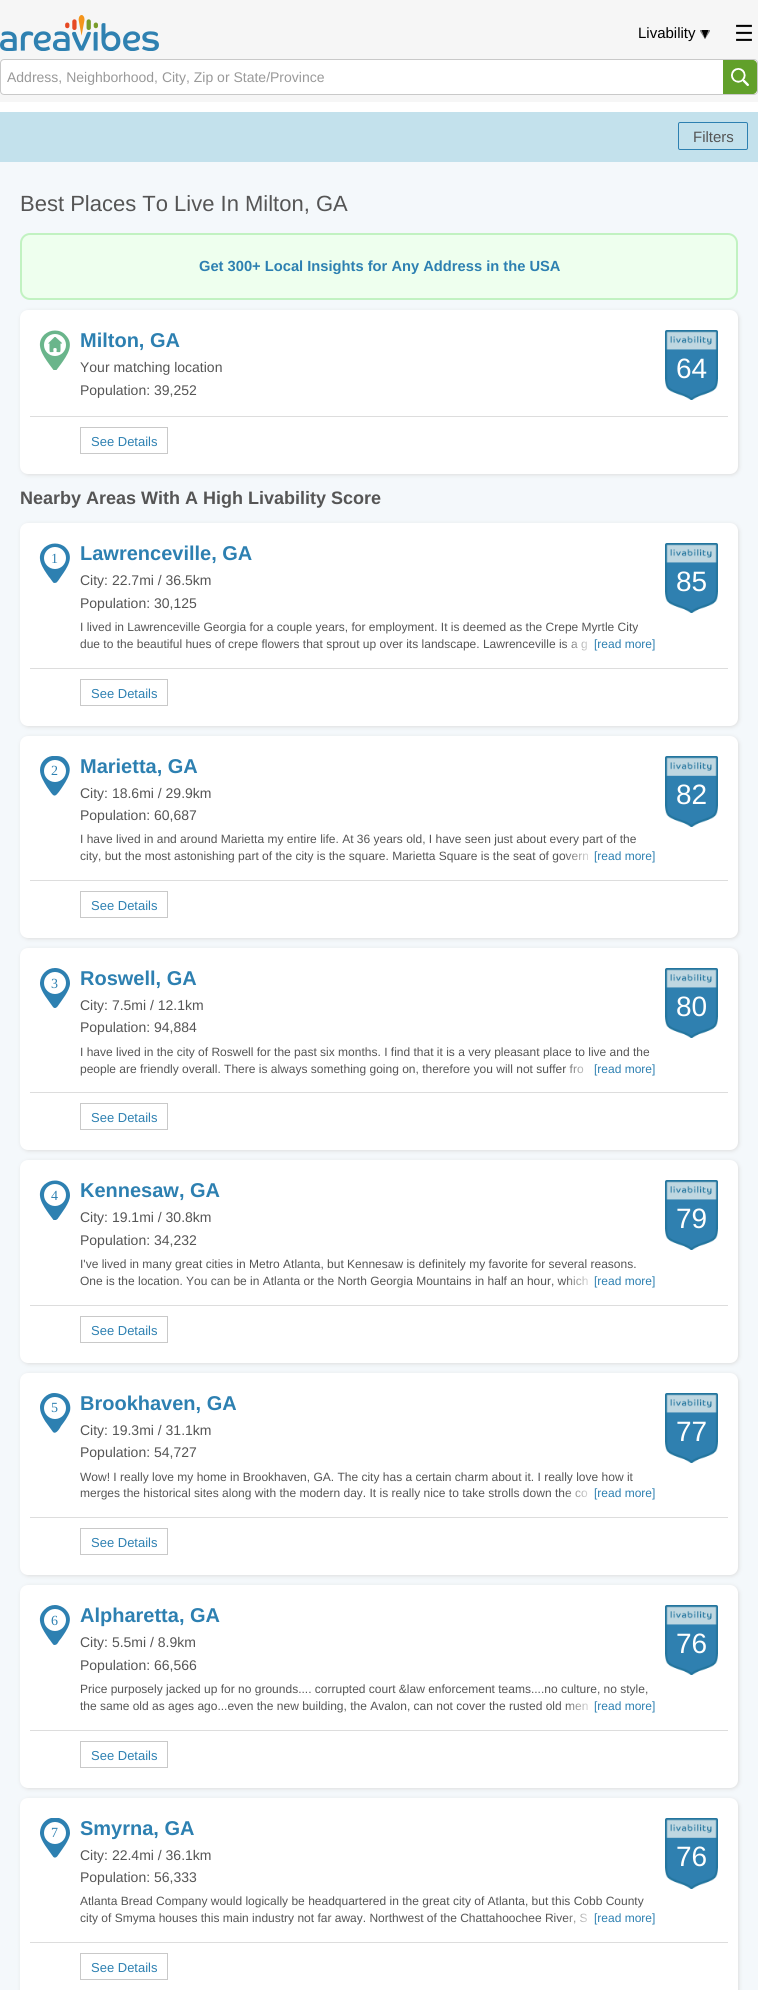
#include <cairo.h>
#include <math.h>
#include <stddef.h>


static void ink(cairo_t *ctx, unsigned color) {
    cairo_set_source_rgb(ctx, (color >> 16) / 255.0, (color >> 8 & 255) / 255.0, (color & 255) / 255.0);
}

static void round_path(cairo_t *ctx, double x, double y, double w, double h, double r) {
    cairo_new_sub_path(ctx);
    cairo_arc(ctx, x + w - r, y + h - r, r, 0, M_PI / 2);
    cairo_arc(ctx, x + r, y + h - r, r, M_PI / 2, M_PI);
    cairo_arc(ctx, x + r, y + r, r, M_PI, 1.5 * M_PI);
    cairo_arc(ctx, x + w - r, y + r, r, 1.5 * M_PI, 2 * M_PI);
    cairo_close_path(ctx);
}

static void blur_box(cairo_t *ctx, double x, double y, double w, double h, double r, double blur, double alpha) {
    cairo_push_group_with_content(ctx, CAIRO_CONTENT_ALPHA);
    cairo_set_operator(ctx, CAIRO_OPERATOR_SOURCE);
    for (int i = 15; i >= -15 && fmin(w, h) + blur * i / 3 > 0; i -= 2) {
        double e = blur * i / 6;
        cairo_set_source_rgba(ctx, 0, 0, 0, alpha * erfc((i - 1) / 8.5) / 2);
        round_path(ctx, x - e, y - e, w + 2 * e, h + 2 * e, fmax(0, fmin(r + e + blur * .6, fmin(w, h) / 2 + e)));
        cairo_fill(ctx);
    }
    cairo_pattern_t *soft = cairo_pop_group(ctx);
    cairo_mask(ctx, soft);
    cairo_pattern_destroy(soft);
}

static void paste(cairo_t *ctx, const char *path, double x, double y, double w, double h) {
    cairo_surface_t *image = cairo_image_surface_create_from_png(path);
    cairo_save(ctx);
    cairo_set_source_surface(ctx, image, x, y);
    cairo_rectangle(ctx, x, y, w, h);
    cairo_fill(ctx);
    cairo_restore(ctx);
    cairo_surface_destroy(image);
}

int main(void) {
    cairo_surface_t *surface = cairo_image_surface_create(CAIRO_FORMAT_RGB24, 758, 1992);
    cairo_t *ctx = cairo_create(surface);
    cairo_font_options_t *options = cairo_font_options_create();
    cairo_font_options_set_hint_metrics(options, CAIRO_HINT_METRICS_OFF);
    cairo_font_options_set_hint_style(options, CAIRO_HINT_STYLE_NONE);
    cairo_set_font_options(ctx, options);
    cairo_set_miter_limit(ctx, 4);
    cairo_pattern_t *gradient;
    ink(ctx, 0xFFFFFF);
    cairo_paint(ctx);
    ink(ctx, 0xF6F6F6);
    cairo_rectangle(ctx, 0, 0, 758, 102);
    cairo_fill(ctx);
    paste(ctx, "media/1.png", 0, 15, 159, 36);
    paste(ctx, "media/2.png", 700, 30, 10, 9);
    cairo_select_font_face(ctx, "Liberation Sans", CAIRO_FONT_SLANT_NORMAL, CAIRO_FONT_WEIGHT_NORMAL);
    cairo_set_font_size(ctx, 15);
    ink(ctx, 0x000000);
    cairo_move_to(ctx, 638, 38);
    cairo_show_text(ctx, "Livability");
    paste(ctx, "media/3.png", 736, 24, 16, 17);
    ink(ctx, 0xFFFFFF);
    round_path(ctx, 0, 59, 758, 36, 4);
    cairo_fill(ctx);
    round_path(ctx, 0.5, 59.5, 757, 35, 3.5);
    cairo_set_source_rgba(ctx, 0.733, 0.733, 0.733, 0.8);
    cairo_set_line_width(ctx, 1);
    cairo_stroke(ctx);
    cairo_set_font_size(ctx, 14);
    ink(ctx, 0x999999);
    cairo_move_to(ctx, 7, 82);
    cairo_show_text(ctx, "Address, Neighborhood, City, Zip or State/Province");
    ink(ctx, 0x61A02A);
    cairo_new_path(ctx);
    cairo_move_to(ctx, 723, 60);
    cairo_line_to(ctx, 753, 60);
    cairo_curve_to(ctx, 755, 60, 757, 62, 757, 64);
    cairo_line_to(ctx, 757, 90);
    cairo_curve_to(ctx, 757, 92, 755, 94, 753, 94);
    cairo_line_to(ctx, 723, 94);
    cairo_close_path(ctx);
    cairo_fill(ctx);
    paste(ctx, "media/4.png", 731, 68, 18, 18);
    ink(ctx, 0xC3E1EC);
    cairo_rectangle(ctx, 0, 112, 758, 50);
    cairo_fill(ctx);
    round_path(ctx, 678.5, 122.5, 69, 27, 1.5);
    ink(ctx, 0x2D80B1);
    cairo_stroke(ctx);
    cairo_set_font_size(ctx, 15);
    ink(ctx, 0x555555);
    cairo_move_to(ctx, 693, 142);
    cairo_show_text(ctx, "Filters");
    ink(ctx, 0xF4F8FB);
    cairo_rectangle(ctx, 0, 162, 758, 1828);
    cairo_fill(ctx);
    cairo_set_font_size(ctx, 22);
    ink(ctx, 0x555555);
    cairo_move_to(ctx, 20, 211);
    cairo_show_text(ctx, "Best Places To Live In Milton, GA");
    ink(ctx, 0xEEFFEE);
    round_path(ctx, 21, 234, 716, 65, 9);
    cairo_fill_preserve(ctx);
    ink(ctx, 0xC1F2C1);
    cairo_set_line_width(ctx, 2);
    cairo_stroke(ctx);
    cairo_select_font_face(ctx, "Liberation Sans", CAIRO_FONT_SLANT_NORMAL, CAIRO_FONT_WEIGHT_BOLD);
    cairo_set_font_size(ctx, 14.7);
    ink(ctx, 0x2D80B1);
    cairo_move_to(ctx, 199, 271);
    cairo_show_text(ctx, "Get 300+ Local Insights for Any Address in the USA");
    ink(ctx, 0xDDDDDD);
    blur_box(ctx, 21, 311, 718, 164, 8, 2, 1);
    ink(ctx, 0xFFFFFF);
    round_path(ctx, 20, 310, 718, 164, 8);
    cairo_fill(ctx);
    ink(ctx, 0x6AB58B);
    cairo_new_path(ctx);
    cairo_move_to(ctx, 55, 330.5);
    cairo_curve_to(ctx, 59, 330.5, 63, 332, 65.5, 335);
    cairo_curve_to(ctx, 75, 344.5, 67, 355.5, 61, 364);
    cairo_line_to(ctx, 56.5, 370);
    cairo_line_to(ctx, 53.5, 370);
    cairo_line_to(ctx, 49, 364);
    cairo_curve_to(ctx, 43, 355.5, 34.5, 344, 44.5, 334.5);
    cairo_curve_to(ctx, 47.5, 332, 51, 330.5, 55, 330.5);
    cairo_close_path(ctx);
    cairo_fill(ctx);
    ink(ctx, 0xFFFFFF);
    cairo_arc(ctx, 55, 345, 11, 0, 2 * M_PI);
    cairo_fill(ctx);
    ink(ctx, 0x6AB58B);
    cairo_new_path(ctx);
    cairo_move_to(ctx, 53.5, 352);
    cairo_curve_to(ctx, 50.5, 352, 49.5, 353, 49.5, 350);
    cairo_line_to(ctx, 49.5, 343.5);
    cairo_line_to(ctx, 48.5, 343.5);
    cairo_curve_to(ctx, 48, 343.5, 48, 343, 48.5, 343);
    cairo_line_to(ctx, 54.5, 337);
    cairo_curve_to(ctx, 55, 337, 55.5, 337, 55.5, 337);
    cairo_line_to(ctx, 62, 343);
    cairo_curve_to(ctx, 62, 343, 62, 343.5, 62, 343.5);
    cairo_line_to(ctx, 60.5, 343.5);
    cairo_line_to(ctx, 60.5, 350);
    cairo_curve_to(ctx, 60.5, 353, 59.5, 352, 56.5, 352);
    cairo_curve_to(ctx, 56.5, 350, 57.5, 348, 55, 348);
    cairo_curve_to(ctx, 52.5, 348, 53.5, 350, 53.5, 352);
    cairo_close_path(ctx);
    cairo_fill(ctx);
    cairo_set_font_size(ctx, 20);
    ink(ctx, 0x2D80B1);
    cairo_move_to(ctx, 80, 347);
    cairo_show_text(ctx, "Milton, GA");
    cairo_select_font_face(ctx, "Liberation Sans", CAIRO_FONT_SLANT_NORMAL, CAIRO_FONT_WEIGHT_NORMAL);
    cairo_set_font_size(ctx, 14);
    ink(ctx, 0x555555);
    cairo_move_to(ctx, 80, 372);
    cairo_show_text(ctx, "Your matching location");
    cairo_move_to(ctx, 80, 395);
    cairo_show_text(ctx, "Population: 39,252");
    paste(ctx, "media/5.png", 665, 330, 53, 70);
    cairo_set_font_size(ctx, 28);
    ink(ctx, 0xFFFFFF);
    cairo_move_to(ctx, 676, 378);
    cairo_show_text(ctx, "64");
    ink(ctx, 0xDDDDDD);
    cairo_rectangle(ctx, 30, 416, 698, 1);
    cairo_fill(ctx);
    cairo_rectangle(ctx, 80.5, 427.5, 87, 26);
    ink(ctx, 0xC9C9C9);
    cairo_set_line_width(ctx, 1);
    cairo_stroke(ctx);
    cairo_set_font_size(ctx, 13);
    ink(ctx, 0x2D80B1);
    cairo_move_to(ctx, 91, 446);
    cairo_show_text(ctx, "See Details");
    cairo_select_font_face(ctx, "Liberation Sans", CAIRO_FONT_SLANT_NORMAL, CAIRO_FONT_WEIGHT_BOLD);
    cairo_set_font_size(ctx, 18);
    ink(ctx, 0x555555);
    cairo_move_to(ctx, 20, 504);
    cairo_show_text(ctx, "Nearby Areas With A High Livability Score");
    ink(ctx, 0xDDDDDD);
    blur_box(ctx, 21, 524, 718, 203, 8, 2, 1);
    ink(ctx, 0xFFFFFF);
    round_path(ctx, 20, 523, 718, 203, 8);
    cairo_fill(ctx);
    ink(ctx, 0x2D80B1);
    cairo_new_path(ctx);
    cairo_move_to(ctx, 55, 543.5);
    cairo_curve_to(ctx, 59, 543.5, 63, 545, 65.5, 547.5);
    cairo_curve_to(ctx, 75, 557, 67, 568, 61, 576.5);
    cairo_line_to(ctx, 59, 579.5);
    cairo_curve_to(ctx, 57, 582, 57, 583, 54, 583);
    cairo_curve_to(ctx, 53, 583, 49.5, 577, 49, 577);
    cairo_curve_to(ctx, 43, 568.5, 34.5, 557, 44.5, 547.5);
    cairo_curve_to(ctx, 47.5, 545, 51, 543.5, 55, 543.5);
    cairo_close_path(ctx);
    cairo_fill(ctx);
    ink(ctx, 0xFFFFFF);
    cairo_arc(ctx, 55, 558, 11, 0, 2 * M_PI);
    cairo_fill(ctx);
    cairo_select_font_face(ctx, "Liberation Serif", CAIRO_FONT_SLANT_NORMAL, CAIRO_FONT_WEIGHT_NORMAL);
    cairo_set_font_size(ctx, 14);
    ink(ctx, 0x2D80B1);
    cairo_move_to(ctx, 51, 563);
    cairo_show_text(ctx, "1");
    cairo_select_font_face(ctx, "Liberation Sans", CAIRO_FONT_SLANT_NORMAL, CAIRO_FONT_WEIGHT_BOLD);
    cairo_set_font_size(ctx, 20);
    cairo_move_to(ctx, 80, 560);
    cairo_show_text(ctx, "Lawrenceville, GA");
    cairo_select_font_face(ctx, "Liberation Sans", CAIRO_FONT_SLANT_NORMAL, CAIRO_FONT_WEIGHT_NORMAL);
    cairo_set_font_size(ctx, 14);
    ink(ctx, 0x555555);
    cairo_move_to(ctx, 80, 585);
    cairo_show_text(ctx, "City: 22.7mi / 36.5km");
    cairo_move_to(ctx, 80, 608);
    cairo_show_text(ctx, "Population: 30,125");
    cairo_set_font_size(ctx, 12);
    cairo_move_to(ctx, 80, 631);
    cairo_show_text(ctx, "I lived in Lawrenceville Georgia for a couple years, for employment. It is deemed as the Crepe Myrtle City");
    cairo_move_to(ctx, 80, 648);
    cairo_show_text(ctx, "due to the beautiful hues of crepe flowers that sprout up over its landscape. Lawrenceville is a g");
    gradient = cairo_pattern_create_linear(564, 645, 655, 645);
    cairo_pattern_add_color_stop_rgba(gradient, 0, 1, 1, 1, 0);
    cairo_pattern_add_color_stop_rgba(gradient, 0.31, 1, 1, 1, 0.9);
    cairo_pattern_add_color_stop_rgba(gradient, 0.33, 1, 1, 1, 1);
    cairo_set_source(ctx, gradient);
    cairo_pattern_destroy(gradient);
    cairo_rectangle(ctx, 565, 641, 22, 10);
    cairo_fill(ctx);
    ink(ctx, 0x2D80B1);
    cairo_move_to(ctx, 594, 648);
    cairo_show_text(ctx, "[read more]");
    paste(ctx, "media/6.png", 665, 543, 53, 70);
    cairo_set_font_size(ctx, 28);
    ink(ctx, 0xFFFFFF);
    cairo_move_to(ctx, 676, 591);
    cairo_show_text(ctx, "85");
    ink(ctx, 0xDDDDDD);
    cairo_rectangle(ctx, 30, 668, 698, 1);
    cairo_fill(ctx);
    cairo_rectangle(ctx, 80.5, 679.5, 87, 26);
    ink(ctx, 0xC9C9C9);
    cairo_stroke(ctx);
    cairo_set_font_size(ctx, 13);
    ink(ctx, 0x2D80B1);
    cairo_move_to(ctx, 91, 698);
    cairo_show_text(ctx, "See Details");
    ink(ctx, 0xDDDDDD);
    blur_box(ctx, 21, 737, 718, 202, 8, 2, 1);
    ink(ctx, 0xFFFFFF);
    round_path(ctx, 20, 736, 718, 202, 8);
    cairo_fill(ctx);
    ink(ctx, 0x2D80B1);
    cairo_new_path(ctx);
    cairo_move_to(ctx, 40, 770);
    cairo_curve_to(ctx, 40, 763, 45, 757, 52, 756);
    cairo_line_to(ctx, 57, 756);
    cairo_curve_to(ctx, 60, 756, 63, 757, 65, 759);
    cairo_curve_to(ctx, 75, 769, 67, 780, 61, 789);
    cairo_curve_to(ctx, 54, 799, 54, 797, 47, 787);
    cairo_curve_to(ctx, 44, 782, 40, 776, 40, 770);
    cairo_close_path(ctx);
    cairo_fill(ctx);
    ink(ctx, 0xFFFFFF);
    cairo_arc(ctx, 55, 771, 11, 0, 2 * M_PI);
    cairo_fill(ctx);
    cairo_select_font_face(ctx, "Liberation Serif", CAIRO_FONT_SLANT_NORMAL, CAIRO_FONT_WEIGHT_NORMAL);
    cairo_set_font_size(ctx, 14);
    ink(ctx, 0x2D80B1);
    cairo_move_to(ctx, 51, 775);
    cairo_show_text(ctx, "2");
    cairo_select_font_face(ctx, "Liberation Sans", CAIRO_FONT_SLANT_NORMAL, CAIRO_FONT_WEIGHT_BOLD);
    cairo_set_font_size(ctx, 20);
    cairo_move_to(ctx, 80, 773);
    cairo_show_text(ctx, "Marietta, GA");
    cairo_select_font_face(ctx, "Liberation Sans", CAIRO_FONT_SLANT_NORMAL, CAIRO_FONT_WEIGHT_NORMAL);
    cairo_set_font_size(ctx, 14);
    ink(ctx, 0x555555);
    cairo_move_to(ctx, 80, 798);
    cairo_show_text(ctx, "City: 18.6mi / 29.9km");
    cairo_move_to(ctx, 80, 820);
    cairo_show_text(ctx, "Population: 60,687");
    cairo_set_font_size(ctx, 12);
    cairo_move_to(ctx, 80, 843);
    cairo_show_text(ctx, "I have lived in and around Marietta my entire life. At 36 years old, I have seen just about every part of the");
    cairo_move_to(ctx, 80, 860);
    cairo_show_text(ctx, "city, but the most astonishing part of the city is the square. Marietta Square is the seat of govern");
    gradient = cairo_pattern_create_linear(564, 857, 655, 857);
    cairo_pattern_add_color_stop_rgba(gradient, 0, 1, 1, 1, 0);
    cairo_pattern_add_color_stop_rgba(gradient, 0.31, 1, 1, 1, 0.9);
    cairo_pattern_add_color_stop_rgba(gradient, 0.33, 1, 1, 1, 1);
    cairo_set_source(ctx, gradient);
    cairo_pattern_destroy(gradient);
    cairo_rectangle(ctx, 566, 853, 23, 8);
    cairo_fill(ctx);
    ink(ctx, 0x2D80B1);
    cairo_move_to(ctx, 594, 860);
    cairo_show_text(ctx, "[read more]");
    paste(ctx, "media/7.png", 665, 756, 53, 71);
    cairo_set_font_size(ctx, 28);
    ink(ctx, 0xFFFFFF);
    cairo_move_to(ctx, 676, 804);
    cairo_show_text(ctx, "82");
    ink(ctx, 0xDDDDDD);
    cairo_rectangle(ctx, 30, 880, 698, 1);
    cairo_fill(ctx);
    cairo_rectangle(ctx, 80.5, 891.5, 87, 26);
    ink(ctx, 0xC9C9C9);
    cairo_stroke(ctx);
    cairo_set_font_size(ctx, 13);
    ink(ctx, 0x2D80B1);
    cairo_move_to(ctx, 91, 910);
    cairo_show_text(ctx, "See Details");
    ink(ctx, 0xDDDDDD);
    blur_box(ctx, 21, 949, 718, 202, 8, 2, 1);
    ink(ctx, 0xFFFFFF);
    round_path(ctx, 20, 948, 718, 202, 8);
    cairo_fill(ctx);
    ink(ctx, 0x2D80B1);
    cairo_new_path(ctx);
    cairo_move_to(ctx, 55, 968);
    cairo_curve_to(ctx, 63.5, 968, 70, 975, 70, 983.5);
    cairo_curve_to(ctx, 70, 990.5, 61.5, 1000.5, 57.5, 1006.5);
    cairo_curve_to(ctx, 56.5, 1007.5, 56, 1008, 55, 1008);
    cairo_line_to(ctx, 54.5, 1008);
    cairo_curve_to(ctx, 54, 1008, 53.5, 1007.5, 53, 1007);
    cairo_curve_to(ctx, 49, 1001, 40.5, 991.5, 40, 984);
    cairo_line_to(ctx, 40, 982.5);
    cairo_curve_to(ctx, 40.5, 974.5, 47, 968, 55, 968);
    cairo_close_path(ctx);
    cairo_fill(ctx);
    ink(ctx, 0xFFFFFF);
    cairo_arc(ctx, 55, 983, 11, 0, 2 * M_PI);
    cairo_fill(ctx);
    cairo_select_font_face(ctx, "Liberation Serif", CAIRO_FONT_SLANT_NORMAL, CAIRO_FONT_WEIGHT_NORMAL);
    cairo_set_font_size(ctx, 14);
    ink(ctx, 0x2D80B1);
    cairo_move_to(ctx, 51, 988);
    cairo_show_text(ctx, "3");
    cairo_select_font_face(ctx, "Liberation Sans", CAIRO_FONT_SLANT_NORMAL, CAIRO_FONT_WEIGHT_BOLD);
    cairo_set_font_size(ctx, 20);
    cairo_move_to(ctx, 80, 985);
    cairo_show_text(ctx, "Roswell, GA");
    cairo_select_font_face(ctx, "Liberation Sans", CAIRO_FONT_SLANT_NORMAL, CAIRO_FONT_WEIGHT_NORMAL);
    cairo_set_font_size(ctx, 14);
    ink(ctx, 0x555555);
    cairo_move_to(ctx, 80, 1010);
    cairo_show_text(ctx, "City: 7.5mi / 12.1km");
    cairo_move_to(ctx, 80, 1032);
    cairo_show_text(ctx, "Population: 94,884");
    cairo_set_font_size(ctx, 12);
    cairo_move_to(ctx, 80, 1056);
    cairo_show_text(ctx, "I have lived in the city of Roswell for the past six months. I find that it is a very pleasant place to live and the");
    cairo_move_to(ctx, 80, 1073);
    cairo_show_text(ctx, "people are friendly overall. There is always something going on, therefore you will not suffer fro");
    gradient = cairo_pattern_create_linear(564, 1069, 655, 1069);
    cairo_pattern_add_color_stop_rgba(gradient, 0, 1, 1, 1, 0);
    cairo_pattern_add_color_stop_rgba(gradient, 0.31, 1, 1, 1, 0.9);
    cairo_pattern_add_color_stop_rgba(gradient, 0.33, 1, 1, 1, 1);
    cairo_set_source(ctx, gradient);
    cairo_pattern_destroy(gradient);
    cairo_rectangle(ctx, 565, 1064, 19, 10);
    cairo_fill(ctx);
    ink(ctx, 0x2D80B1);
    cairo_move_to(ctx, 594, 1073);
    cairo_show_text(ctx, "[read more]");
    paste(ctx, "media/6.png", 665, 968, 53, 70);
    cairo_set_font_size(ctx, 28);
    ink(ctx, 0xFFFFFF);
    cairo_move_to(ctx, 676, 1016);
    cairo_show_text(ctx, "80");
    ink(ctx, 0xDDDDDD);
    cairo_rectangle(ctx, 30, 1092, 698, 1);
    cairo_fill(ctx);
    cairo_rectangle(ctx, 80.5, 1103.5, 87, 26);
    ink(ctx, 0xC9C9C9);
    cairo_stroke(ctx);
    cairo_set_font_size(ctx, 13);
    ink(ctx, 0x2D80B1);
    cairo_move_to(ctx, 91, 1122);
    cairo_show_text(ctx, "See Details");
    ink(ctx, 0xDDDDDD);
    blur_box(ctx, 21, 1161, 718, 203, 8, 2, 1);
    ink(ctx, 0xFFFFFF);
    round_path(ctx, 20, 1160, 718, 203, 8);
    cairo_fill(ctx);
    ink(ctx, 0x2D80B1);
    cairo_new_path(ctx);
    cairo_move_to(ctx, 55, 1180.5);
    cairo_curve_to(ctx, 63.5, 1180.5, 70, 1187, 70, 1195.5);
    cairo_curve_to(ctx, 70, 1203, 61.5, 1213, 57.5, 1219);
    cairo_line_to(ctx, 56, 1220);
    cairo_line_to(ctx, 53.5, 1220);
    cairo_line_to(ctx, 49, 1214);
    cairo_curve_to(ctx, 43, 1205.5, 34.5, 1194, 44.5, 1184.5);
    cairo_curve_to(ctx, 47.5, 1182, 51, 1180.5, 55, 1180.5);
    cairo_close_path(ctx);
    cairo_fill(ctx);
    ink(ctx, 0xFFFFFF);
    cairo_arc(ctx, 55, 1195, 11, 0, 2 * M_PI);
    cairo_fill(ctx);
    cairo_select_font_face(ctx, "Liberation Serif", CAIRO_FONT_SLANT_NORMAL, CAIRO_FONT_WEIGHT_NORMAL);
    cairo_set_font_size(ctx, 14);
    ink(ctx, 0x2D80B1);
    cairo_move_to(ctx, 51, 1200);
    cairo_show_text(ctx, "4");
    cairo_select_font_face(ctx, "Liberation Sans", CAIRO_FONT_SLANT_NORMAL, CAIRO_FONT_WEIGHT_BOLD);
    cairo_set_font_size(ctx, 20);
    cairo_move_to(ctx, 80, 1197);
    cairo_show_text(ctx, "Kennesaw, GA");
    cairo_select_font_face(ctx, "Liberation Sans", CAIRO_FONT_SLANT_NORMAL, CAIRO_FONT_WEIGHT_NORMAL);
    cairo_set_font_size(ctx, 14);
    ink(ctx, 0x555555);
    cairo_move_to(ctx, 80, 1222);
    cairo_show_text(ctx, "City: 19.1mi / 30.8km");
    cairo_move_to(ctx, 80, 1245);
    cairo_show_text(ctx, "Population: 34,232");
    cairo_set_font_size(ctx, 12);
    cairo_move_to(ctx, 80, 1268);
    cairo_show_text(ctx, "I've lived in many great cities in Metro Atlanta, but Kennesaw is definitely my favorite for several reasons.");
    cairo_move_to(ctx, 80, 1285);
    cairo_show_text(ctx, "One is the location. You can be in Atlanta or the North Georgia Mountains in half an hour, which");
    gradient = cairo_pattern_create_linear(564, 1282, 655, 1282);
    cairo_pattern_add_color_stop_rgba(gradient, 0, 1, 1, 1, 0);
    cairo_pattern_add_color_stop_rgba(gradient, 0.31, 1, 1, 1, 0.9);
    cairo_pattern_add_color_stop_rgba(gradient, 0.33, 1, 1, 1, 1);
    cairo_set_source(ctx, gradient);
    cairo_pattern_destroy(gradient);
    cairo_rectangle(ctx, 565, 1276, 23, 10);
    cairo_fill(ctx);
    ink(ctx, 0x2D80B1);
    cairo_move_to(ctx, 594, 1285);
    cairo_show_text(ctx, "[read more]");
    paste(ctx, "media/6.png", 665, 1180, 53, 70);
    cairo_set_font_size(ctx, 28);
    ink(ctx, 0xFFFFFF);
    cairo_move_to(ctx, 676, 1228);
    cairo_show_text(ctx, "79");
    ink(ctx, 0xDDDDDD);
    cairo_rectangle(ctx, 30, 1305, 698, 1);
    cairo_fill(ctx);
    cairo_rectangle(ctx, 80.5, 1316.5, 87, 26);
    ink(ctx, 0xC9C9C9);
    cairo_stroke(ctx);
    cairo_set_font_size(ctx, 13);
    ink(ctx, 0x2D80B1);
    cairo_move_to(ctx, 91, 1335);
    cairo_show_text(ctx, "See Details");
    ink(ctx, 0xDDDDDD);
    blur_box(ctx, 21, 1374, 718, 202, 8, 2, 1);
    ink(ctx, 0xFFFFFF);
    round_path(ctx, 20, 1373, 718, 202, 8);
    cairo_fill(ctx);
    ink(ctx, 0x2D80B1);
    cairo_new_path(ctx);
    cairo_move_to(ctx, 40, 1407);
    cairo_curve_to(ctx, 40, 1400, 47, 1393, 54, 1393);
    cairo_curve_to(ctx, 64, 1393, 72, 1401, 70, 1411);
    cairo_curve_to(ctx, 68, 1417, 64, 1422, 61, 1426);
    cairo_curve_to(ctx, 60, 1428, 56, 1435, 53, 1432);
    cairo_line_to(ctx, 45, 1421);
    cairo_curve_to(ctx, 42, 1416, 40, 1412, 40, 1407);
    cairo_close_path(ctx);
    cairo_fill(ctx);
    ink(ctx, 0xFFFFFF);
    cairo_arc(ctx, 55, 1408, 11, 0, 2 * M_PI);
    cairo_fill(ctx);
    cairo_select_font_face(ctx, "Liberation Serif", CAIRO_FONT_SLANT_NORMAL, CAIRO_FONT_WEIGHT_NORMAL);
    cairo_set_font_size(ctx, 14);
    ink(ctx, 0x2D80B1);
    cairo_move_to(ctx, 51, 1412);
    cairo_show_text(ctx, "5");
    cairo_select_font_face(ctx, "Liberation Sans", CAIRO_FONT_SLANT_NORMAL, CAIRO_FONT_WEIGHT_BOLD);
    cairo_set_font_size(ctx, 20);
    cairo_move_to(ctx, 80, 1410);
    cairo_show_text(ctx, "Brookhaven, GA");
    cairo_select_font_face(ctx, "Liberation Sans", CAIRO_FONT_SLANT_NORMAL, CAIRO_FONT_WEIGHT_NORMAL);
    cairo_set_font_size(ctx, 14);
    ink(ctx, 0x555555);
    cairo_move_to(ctx, 80, 1435);
    cairo_show_text(ctx, "City: 19.3mi / 31.1km");
    cairo_move_to(ctx, 80, 1457);
    cairo_show_text(ctx, "Population: 54,727");
    cairo_set_font_size(ctx, 12);
    cairo_move_to(ctx, 80, 1481);
    cairo_show_text(ctx, "Wow! I really love my home in Brookhaven, GA. The city has a certain charm about it. I really love how it");
    cairo_move_to(ctx, 80, 1497);
    cairo_show_text(ctx, "merges the historical sites along with the modern day. It is really nice to take strolls down the co");
    gradient = cairo_pattern_create_linear(564, 1494, 655, 1494);
    cairo_pattern_add_color_stop_rgba(gradient, 0, 1, 1, 1, 0);
    cairo_pattern_add_color_stop_rgba(gradient, 0.31, 1, 1, 1, 0.9);
    cairo_pattern_add_color_stop_rgba(gradient, 0.33, 1, 1, 1, 1);
    cairo_set_source(ctx, gradient);
    cairo_pattern_destroy(gradient);
    cairo_rectangle(ctx, 565, 1490, 23, 8);
    cairo_fill(ctx);
    ink(ctx, 0x2D80B1);
    cairo_move_to(ctx, 594, 1497);
    cairo_show_text(ctx, "[read more]");
    paste(ctx, "media/6.png", 665, 1393, 53, 70);
    cairo_set_font_size(ctx, 28);
    ink(ctx, 0xFFFFFF);
    cairo_move_to(ctx, 676, 1441);
    cairo_show_text(ctx, "77");
    ink(ctx, 0xDDDDDD);
    cairo_rectangle(ctx, 30, 1517, 698, 1);
    cairo_fill(ctx);
    cairo_rectangle(ctx, 80.5, 1528.5, 87, 26);
    ink(ctx, 0xC9C9C9);
    cairo_stroke(ctx);
    cairo_set_font_size(ctx, 13);
    ink(ctx, 0x2D80B1);
    cairo_move_to(ctx, 91, 1547);
    cairo_show_text(ctx, "See Details");
    ink(ctx, 0xDDDDDD);
    blur_box(ctx, 21, 1586, 718, 203, 8, 2, 1);
    ink(ctx, 0xFFFFFF);
    round_path(ctx, 20, 1585, 718, 203, 8);
    cairo_fill(ctx);
    ink(ctx, 0x2D80B1);
    cairo_new_path(ctx);
    cairo_move_to(ctx, 55, 1605);
    cairo_curve_to(ctx, 59, 1605, 63, 1607, 65.5, 1609.5);
    cairo_curve_to(ctx, 75, 1619, 67, 1630, 61, 1638.5);
    cairo_line_to(ctx, 59, 1641);
    cairo_curve_to(ctx, 57.5, 1643.5, 57, 1645, 54, 1645);
    cairo_curve_to(ctx, 53, 1645, 49.5, 1639, 49, 1639);
    cairo_curve_to(ctx, 43, 1630, 34.5, 1619, 44.5, 1609.5);
    cairo_curve_to(ctx, 47.5, 1606.5, 51, 1605, 55, 1605);
    cairo_close_path(ctx);
    cairo_fill(ctx);
    ink(ctx, 0xFFFFFF);
    cairo_arc(ctx, 55, 1620, 11, 0, 2 * M_PI);
    cairo_fill(ctx);
    cairo_select_font_face(ctx, "Liberation Serif", CAIRO_FONT_SLANT_NORMAL, CAIRO_FONT_WEIGHT_NORMAL);
    cairo_set_font_size(ctx, 14);
    ink(ctx, 0x2D80B1);
    cairo_move_to(ctx, 51, 1625);
    cairo_show_text(ctx, "6");
    cairo_select_font_face(ctx, "Liberation Sans", CAIRO_FONT_SLANT_NORMAL, CAIRO_FONT_WEIGHT_BOLD);
    cairo_set_font_size(ctx, 20);
    cairo_move_to(ctx, 80, 1622);
    cairo_show_text(ctx, "Alpharetta, GA");
    cairo_select_font_face(ctx, "Liberation Sans", CAIRO_FONT_SLANT_NORMAL, CAIRO_FONT_WEIGHT_NORMAL);
    cairo_set_font_size(ctx, 14);
    ink(ctx, 0x555555);
    cairo_move_to(ctx, 80, 1647);
    cairo_show_text(ctx, "City: 5.5mi / 8.9km");
    cairo_move_to(ctx, 80, 1670);
    cairo_show_text(ctx, "Population: 66,566");
    cairo_set_font_size(ctx, 12);
    cairo_move_to(ctx, 80, 1693);
    cairo_show_text(ctx, "Price purposely jacked up for no grounds.... corrupted court &law enforcement teams....no culture, no style,");
    cairo_move_to(ctx, 80, 1710);
    cairo_show_text(ctx, "the same old as ages ago...even the new building, the Avalon, can not cover the rusted old men");
    gradient = cairo_pattern_create_linear(564, 1707, 655, 1707);
    cairo_pattern_add_color_stop_rgba(gradient, 0, 1, 1, 1, 0);
    cairo_pattern_add_color_stop_rgba(gradient, 0.31, 1, 1, 1, 0.9);
    cairo_pattern_add_color_stop_rgba(gradient, 0.33, 1, 1, 1, 1);
    cairo_set_source(ctx, gradient);
    cairo_pattern_destroy(gradient);
    cairo_rectangle(ctx, 566, 1703, 22, 8);
    cairo_fill(ctx);
    ink(ctx, 0x2D80B1);
    cairo_move_to(ctx, 594, 1710);
    cairo_show_text(ctx, "[read more]");
    paste(ctx, "media/6.png", 665, 1605, 53, 70);
    cairo_set_font_size(ctx, 28);
    ink(ctx, 0xFFFFFF);
    cairo_move_to(ctx, 676, 1653);
    cairo_show_text(ctx, "76");
    ink(ctx, 0xDDDDDD);
    cairo_rectangle(ctx, 30, 1730, 698, 1);
    cairo_fill(ctx);
    cairo_rectangle(ctx, 80.5, 1741.5, 87, 26);
    ink(ctx, 0xC9C9C9);
    cairo_stroke(ctx);
    cairo_set_font_size(ctx, 13);
    ink(ctx, 0x2D80B1);
    cairo_move_to(ctx, 91, 1760);
    cairo_show_text(ctx, "See Details");
    cairo_save(ctx);
    cairo_rectangle(ctx, 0, 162, 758, 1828);
    cairo_clip(ctx);
    ink(ctx, 0xDDDDDD);
    blur_box(ctx, 21, 1799, 718, 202, 8, 2, 1);
    cairo_restore(ctx);
    ink(ctx, 0xFFFFFF);
    cairo_new_path(ctx);
    cairo_move_to(ctx, 28, 1798);
    cairo_line_to(ctx, 730, 1798);
    cairo_curve_to(ctx, 734.5, 1798, 738, 1801.5, 738, 1806);
    cairo_line_to(ctx, 738, 1990);
    cairo_line_to(ctx, 20, 1990);
    cairo_line_to(ctx, 20, 1806);
    cairo_curve_to(ctx, 20, 1801.5, 23.5, 1798, 28, 1798);
    cairo_close_path(ctx);
    cairo_fill(ctx);
    ink(ctx, 0x2D80B1);
    cairo_new_path(ctx);
    cairo_move_to(ctx, 40, 1832);
    cairo_curve_to(ctx, 40.5, 1825, 45, 1819.5, 51, 1818);
    cairo_line_to(ctx, 59, 1818);
    cairo_curve_to(ctx, 65, 1819.5, 70, 1825.5, 70, 1833);
    cairo_curve_to(ctx, 70, 1840, 61.5, 1850, 57.5, 1856);
    cairo_curve_to(ctx, 56, 1858, 54, 1858, 53, 1856.5);
    cairo_curve_to(ctx, 49, 1850.5, 40.5, 1841, 40, 1833.5);
    cairo_close_path(ctx);
    cairo_fill(ctx);
    ink(ctx, 0xFFFFFF);
    cairo_arc(ctx, 55, 1833, 11, 0, 2 * M_PI);
    cairo_fill(ctx);
    cairo_select_font_face(ctx, "Liberation Serif", CAIRO_FONT_SLANT_NORMAL, CAIRO_FONT_WEIGHT_NORMAL);
    cairo_set_font_size(ctx, 14);
    ink(ctx, 0x2D80B1);
    cairo_move_to(ctx, 51, 1837);
    cairo_show_text(ctx, "7");
    cairo_select_font_face(ctx, "Liberation Sans", CAIRO_FONT_SLANT_NORMAL, CAIRO_FONT_WEIGHT_BOLD);
    cairo_set_font_size(ctx, 20);
    cairo_move_to(ctx, 80, 1835);
    cairo_show_text(ctx, "Smyrna, GA");
    cairo_select_font_face(ctx, "Liberation Sans", CAIRO_FONT_SLANT_NORMAL, CAIRO_FONT_WEIGHT_NORMAL);
    cairo_set_font_size(ctx, 14);
    ink(ctx, 0x555555);
    cairo_move_to(ctx, 80, 1860);
    cairo_show_text(ctx, "City: 22.4mi / 36.1km");
    cairo_move_to(ctx, 80, 1882);
    cairo_show_text(ctx, "Population: 56,333");
    cairo_set_font_size(ctx, 12);
    cairo_move_to(ctx, 80, 1905);
    cairo_show_text(ctx, "Atlanta Bread Company would logically be headquartered in the great city of Atlanta, but this Cobb County");
    cairo_move_to(ctx, 80, 1922);
    cairo_show_text(ctx, "city of Smyma houses this main industry not far away. Northwest of the Chattahoochee River, S");
    gradient = cairo_pattern_create_linear(564, 1919, 655, 1919);
    cairo_pattern_add_color_stop_rgba(gradient, 0, 1, 1, 1, 0);
    cairo_pattern_add_color_stop_rgba(gradient, 0.31, 1, 1, 1, 0.9);
    cairo_pattern_add_color_stop_rgba(gradient, 0.33, 1, 1, 1, 1);
    cairo_set_source(ctx, gradient);
    cairo_pattern_destroy(gradient);
    cairo_rectangle(ctx, 565, 1913, 22, 11);
    cairo_fill(ctx);
    ink(ctx, 0x2D80B1);
    cairo_move_to(ctx, 594, 1922);
    cairo_show_text(ctx, "[read more]");
    paste(ctx, "media/7.png", 665, 1818, 53, 71);
    cairo_set_font_size(ctx, 28);
    ink(ctx, 0xFFFFFF);
    cairo_move_to(ctx, 676, 1866);
    cairo_show_text(ctx, "76");
    ink(ctx, 0xDDDDDD);
    cairo_rectangle(ctx, 30, 1942, 698, 1);
    cairo_fill(ctx);
    cairo_rectangle(ctx, 80.5, 1953.5, 87, 26);
    ink(ctx, 0xC9C9C9);
    cairo_stroke(ctx);
    cairo_set_font_size(ctx, 13);
    ink(ctx, 0x2D80B1);
    cairo_move_to(ctx, 91, 1972);
    cairo_show_text(ctx, "See Details");
    cairo_surface_write_to_png(surface, "image.png");
    cairo_font_options_destroy(options);
    cairo_destroy(ctx);
    cairo_surface_destroy(surface);
    return 0;
}
